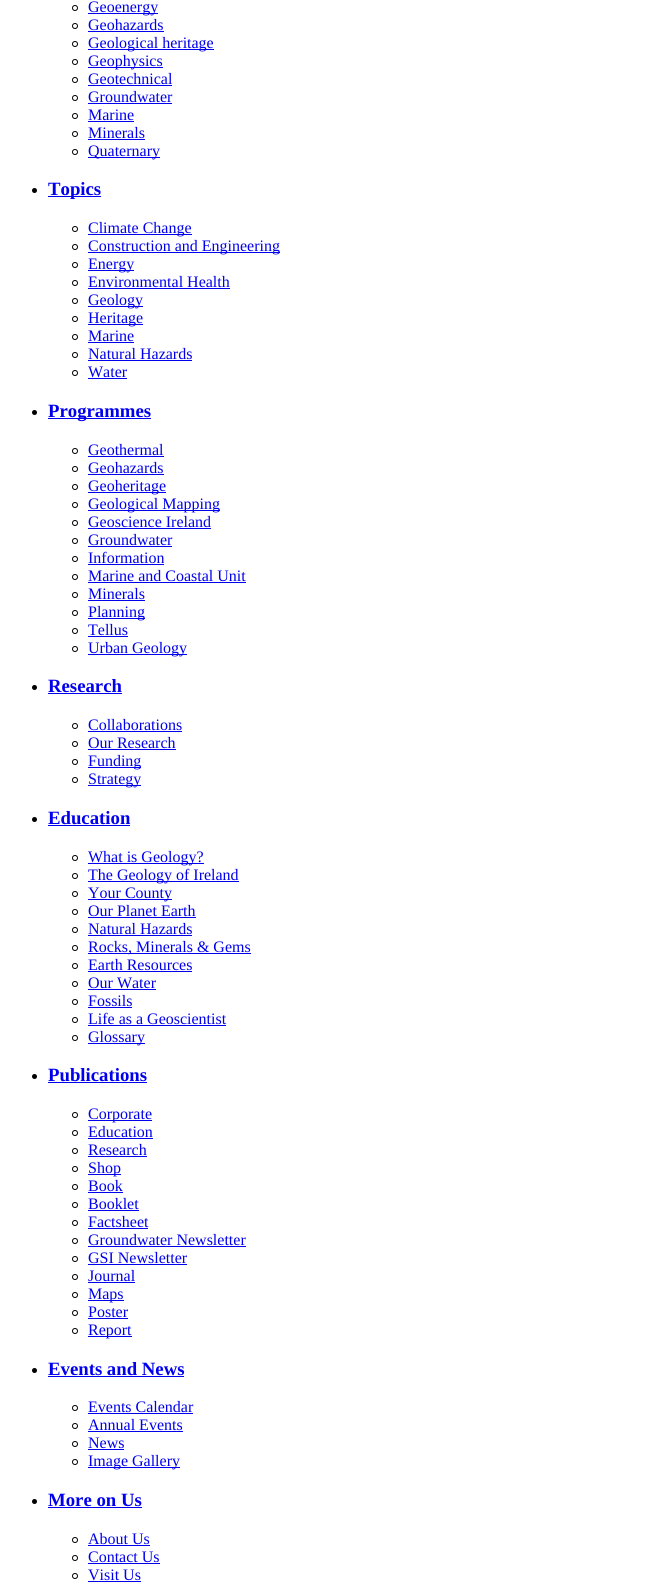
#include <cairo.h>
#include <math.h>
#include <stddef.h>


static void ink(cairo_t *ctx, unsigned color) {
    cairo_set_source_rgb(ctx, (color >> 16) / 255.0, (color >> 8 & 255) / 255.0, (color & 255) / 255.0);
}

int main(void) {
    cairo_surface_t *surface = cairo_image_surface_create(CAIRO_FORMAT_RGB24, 669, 1582);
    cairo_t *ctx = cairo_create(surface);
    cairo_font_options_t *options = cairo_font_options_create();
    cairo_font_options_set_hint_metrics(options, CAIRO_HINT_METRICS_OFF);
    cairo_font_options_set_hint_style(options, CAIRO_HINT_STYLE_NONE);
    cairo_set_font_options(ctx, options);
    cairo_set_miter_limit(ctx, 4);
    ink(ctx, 0xFFFFFF);
    cairo_paint(ctx);
    cairo_arc(ctx, 75, 8, 2.5, 0, 2 * M_PI);
    ink(ctx, 0x000000);
    cairo_set_line_width(ctx, 1);
    cairo_stroke(ctx);
    ink(ctx, 0x0000EE);
    cairo_rectangle(ctx, 88, 13, 70, 1);
    cairo_fill(ctx);
    cairo_select_font_face(ctx, "Liberation Serif", CAIRO_FONT_SLANT_NORMAL, CAIRO_FONT_WEIGHT_NORMAL);
    cairo_set_font_size(ctx, 16);
    cairo_move_to(ctx, 88, 12);
    cairo_show_text(ctx, "Geoenergy");
    cairo_new_path(ctx);
    cairo_arc(ctx, 75, 26, 2.5, 0, 2 * M_PI);
    ink(ctx, 0x000000);
    cairo_stroke(ctx);
    ink(ctx, 0x0000EE);
    cairo_move_to(ctx, 88, 30);
    cairo_show_text(ctx, "Geohazards");
    cairo_rectangle(ctx, 88, 31, 76, 1);
    cairo_fill(ctx);
    cairo_arc(ctx, 75, 44, 2.5, 0, 2 * M_PI);
    ink(ctx, 0x000000);
    cairo_stroke(ctx);
    ink(ctx, 0x0000EE);
    cairo_rectangle(ctx, 88, 49, 126, 1);
    cairo_fill(ctx);
    cairo_move_to(ctx, 88, 48);
    cairo_show_text(ctx, "Geological heritage");
    cairo_new_path(ctx);
    cairo_arc(ctx, 75, 62, 2.5, 0, 2 * M_PI);
    ink(ctx, 0x000000);
    cairo_stroke(ctx);
    ink(ctx, 0x0000EE);
    cairo_rectangle(ctx, 88, 67, 75, 1);
    cairo_fill(ctx);
    cairo_move_to(ctx, 88, 66);
    cairo_show_text(ctx, "Geophysics");
    cairo_new_path(ctx);
    cairo_arc(ctx, 75, 80, 2.5, 0, 2 * M_PI);
    ink(ctx, 0x000000);
    cairo_stroke(ctx);
    ink(ctx, 0x0000EE);
    cairo_move_to(ctx, 88, 84);
    cairo_show_text(ctx, "Geotechnical");
    cairo_rectangle(ctx, 88, 85, 84, 1);
    cairo_fill(ctx);
    cairo_arc(ctx, 75, 98, 2.5, 0, 2 * M_PI);
    ink(ctx, 0x000000);
    cairo_stroke(ctx);
    ink(ctx, 0x0000EE);
    cairo_move_to(ctx, 88, 102);
    cairo_show_text(ctx, "Groundwater");
    cairo_rectangle(ctx, 88, 103, 84, 1);
    cairo_fill(ctx);
    cairo_arc(ctx, 75, 116, 2.5, 0, 2 * M_PI);
    ink(ctx, 0x000000);
    cairo_stroke(ctx);
    ink(ctx, 0x0000EE);
    cairo_move_to(ctx, 88, 120);
    cairo_show_text(ctx, "Marine");
    cairo_rectangle(ctx, 88, 121, 46, 1);
    cairo_fill(ctx);
    cairo_arc(ctx, 75, 134, 2.5, 0, 2 * M_PI);
    ink(ctx, 0x000000);
    cairo_stroke(ctx);
    ink(ctx, 0x0000EE);
    cairo_move_to(ctx, 88, 138);
    cairo_show_text(ctx, "Minerals");
    cairo_rectangle(ctx, 88, 139, 57, 1);
    cairo_fill(ctx);
    cairo_arc(ctx, 75, 152, 2.5, 0, 2 * M_PI);
    ink(ctx, 0x000000);
    cairo_stroke(ctx);
    ink(ctx, 0x0000EE);
    cairo_rectangle(ctx, 88, 157, 72, 1);
    cairo_fill(ctx);
    cairo_move_to(ctx, 88, 156);
    cairo_show_text(ctx, "Quaternary");
    ink(ctx, 0x000000);
    cairo_new_path(ctx);
    cairo_arc(ctx, 34.5, 190.5, 2.5, 0, 2 * M_PI);
    cairo_fill(ctx);
    ink(ctx, 0x0000EE);
    cairo_rectangle(ctx, 48, 196, 53, 1);
    cairo_fill(ctx);
    cairo_select_font_face(ctx, "Liberation Serif", CAIRO_FONT_SLANT_NORMAL, CAIRO_FONT_WEIGHT_BOLD);
    cairo_set_font_size(ctx, 18.75);
    cairo_move_to(ctx, 48, 195);
    cairo_show_text(ctx, "Topics");
    cairo_new_path(ctx);
    cairo_arc(ctx, 75, 229, 2.5, 0, 2 * M_PI);
    ink(ctx, 0x000000);
    cairo_stroke(ctx);
    ink(ctx, 0x0000EE);
    cairo_rectangle(ctx, 88, 234, 104, 1);
    cairo_fill(ctx);
    cairo_select_font_face(ctx, "Liberation Serif", CAIRO_FONT_SLANT_NORMAL, CAIRO_FONT_WEIGHT_NORMAL);
    cairo_set_font_size(ctx, 16);
    cairo_move_to(ctx, 88, 233);
    cairo_show_text(ctx, "Climate Change");
    cairo_new_path(ctx);
    cairo_arc(ctx, 75, 247, 2.5, 0, 2 * M_PI);
    ink(ctx, 0x000000);
    cairo_stroke(ctx);
    ink(ctx, 0x0000EE);
    cairo_rectangle(ctx, 88, 252, 192, 1);
    cairo_fill(ctx);
    cairo_move_to(ctx, 88, 251);
    cairo_show_text(ctx, "Construction and Engineering");
    cairo_new_path(ctx);
    cairo_arc(ctx, 75, 265, 2.5, 0, 2 * M_PI);
    ink(ctx, 0x000000);
    cairo_stroke(ctx);
    ink(ctx, 0x0000EE);
    cairo_rectangle(ctx, 88, 270, 46, 1);
    cairo_fill(ctx);
    cairo_move_to(ctx, 88, 269);
    cairo_show_text(ctx, "Energy");
    cairo_new_path(ctx);
    cairo_arc(ctx, 75, 283, 2.5, 0, 2 * M_PI);
    ink(ctx, 0x000000);
    cairo_stroke(ctx);
    ink(ctx, 0x0000EE);
    cairo_move_to(ctx, 88, 287);
    cairo_show_text(ctx, "Environmental Health");
    cairo_rectangle(ctx, 88, 288, 142, 1);
    cairo_fill(ctx);
    cairo_arc(ctx, 75, 301, 2.5, 0, 2 * M_PI);
    ink(ctx, 0x000000);
    cairo_stroke(ctx);
    ink(ctx, 0x0000EE);
    cairo_rectangle(ctx, 88, 306, 55, 1);
    cairo_fill(ctx);
    cairo_move_to(ctx, 88, 305);
    cairo_show_text(ctx, "Geology");
    cairo_new_path(ctx);
    cairo_arc(ctx, 75, 319, 2.5, 0, 2 * M_PI);
    ink(ctx, 0x000000);
    cairo_stroke(ctx);
    ink(ctx, 0x0000EE);
    cairo_rectangle(ctx, 88, 324, 55, 1);
    cairo_fill(ctx);
    cairo_move_to(ctx, 88, 323);
    cairo_show_text(ctx, "Heritage");
    cairo_new_path(ctx);
    cairo_arc(ctx, 75, 337, 2.5, 0, 2 * M_PI);
    ink(ctx, 0x000000);
    cairo_stroke(ctx);
    ink(ctx, 0x0000EE);
    cairo_move_to(ctx, 88, 341);
    cairo_show_text(ctx, "Marine");
    cairo_rectangle(ctx, 88, 342, 46, 1);
    cairo_fill(ctx);
    cairo_arc(ctx, 75, 355, 2.5, 0, 2 * M_PI);
    ink(ctx, 0x000000);
    cairo_stroke(ctx);
    ink(ctx, 0x0000EE);
    cairo_move_to(ctx, 88, 359);
    cairo_show_text(ctx, "Natural Hazards");
    cairo_rectangle(ctx, 88, 360, 104, 1);
    cairo_fill(ctx);
    cairo_arc(ctx, 75, 373, 2.5, 0, 2 * M_PI);
    ink(ctx, 0x000000);
    cairo_stroke(ctx);
    ink(ctx, 0x0000EE);
    cairo_move_to(ctx, 88, 377);
    cairo_show_text(ctx, "Water");
    cairo_rectangle(ctx, 88, 378, 39, 1);
    cairo_fill(ctx);
    ink(ctx, 0x000000);
    cairo_arc(ctx, 34.5, 412.5, 2.5, 0, 2 * M_PI);
    cairo_fill(ctx);
    ink(ctx, 0x0000EE);
    cairo_rectangle(ctx, 48, 418, 103, 1);
    cairo_fill(ctx);
    cairo_select_font_face(ctx, "Liberation Serif", CAIRO_FONT_SLANT_NORMAL, CAIRO_FONT_WEIGHT_BOLD);
    cairo_set_font_size(ctx, 18.75);
    cairo_move_to(ctx, 48, 417);
    cairo_show_text(ctx, "Programmes");
    cairo_new_path(ctx);
    cairo_arc(ctx, 75, 451, 2.5, 0, 2 * M_PI);
    ink(ctx, 0x000000);
    cairo_stroke(ctx);
    cairo_select_font_face(ctx, "Liberation Serif", CAIRO_FONT_SLANT_NORMAL, CAIRO_FONT_WEIGHT_NORMAL);
    cairo_set_font_size(ctx, 16);
    ink(ctx, 0x0000EE);
    cairo_move_to(ctx, 88, 455);
    cairo_show_text(ctx, "Geothermal");
    cairo_rectangle(ctx, 88, 456, 76, 1);
    cairo_fill(ctx);
    cairo_arc(ctx, 75, 469, 2.5, 0, 2 * M_PI);
    ink(ctx, 0x000000);
    cairo_stroke(ctx);
    ink(ctx, 0x0000EE);
    cairo_move_to(ctx, 88, 473);
    cairo_show_text(ctx, "Geohazards");
    cairo_rectangle(ctx, 88, 474, 76, 1);
    cairo_fill(ctx);
    cairo_arc(ctx, 75, 487, 2.5, 0, 2 * M_PI);
    ink(ctx, 0x000000);
    cairo_stroke(ctx);
    ink(ctx, 0x0000EE);
    cairo_rectangle(ctx, 88, 492, 78, 1);
    cairo_fill(ctx);
    cairo_move_to(ctx, 88, 491);
    cairo_show_text(ctx, "Geoheritage");
    cairo_new_path(ctx);
    cairo_arc(ctx, 75, 505, 2.5, 0, 2 * M_PI);
    ink(ctx, 0x000000);
    cairo_stroke(ctx);
    ink(ctx, 0x0000EE);
    cairo_rectangle(ctx, 88, 510, 132, 1);
    cairo_fill(ctx);
    cairo_move_to(ctx, 88, 509);
    cairo_show_text(ctx, "Geological Mapping");
    cairo_new_path(ctx);
    cairo_arc(ctx, 75, 523, 2.5, 0, 2 * M_PI);
    ink(ctx, 0x000000);
    cairo_stroke(ctx);
    ink(ctx, 0x0000EE);
    cairo_move_to(ctx, 88, 527);
    cairo_show_text(ctx, "Geoscience Ireland");
    cairo_rectangle(ctx, 88, 528, 123, 1);
    cairo_fill(ctx);
    cairo_arc(ctx, 75, 541, 2.5, 0, 2 * M_PI);
    ink(ctx, 0x000000);
    cairo_stroke(ctx);
    ink(ctx, 0x0000EE);
    cairo_move_to(ctx, 88, 545);
    cairo_show_text(ctx, "Groundwater");
    cairo_rectangle(ctx, 88, 546, 84, 1);
    cairo_fill(ctx);
    cairo_arc(ctx, 75, 559, 2.5, 0, 2 * M_PI);
    ink(ctx, 0x000000);
    cairo_stroke(ctx);
    ink(ctx, 0x0000EE);
    cairo_move_to(ctx, 88, 563);
    cairo_show_text(ctx, "Information");
    cairo_rectangle(ctx, 88, 564, 76, 1);
    cairo_fill(ctx);
    cairo_arc(ctx, 75, 577, 2.5, 0, 2 * M_PI);
    ink(ctx, 0x000000);
    cairo_stroke(ctx);
    ink(ctx, 0x0000EE);
    cairo_move_to(ctx, 88, 581);
    cairo_show_text(ctx, "Marine and Coastal Unit");
    cairo_rectangle(ctx, 88, 582, 158, 1);
    cairo_fill(ctx);
    cairo_arc(ctx, 75, 595, 2.5, 0, 2 * M_PI);
    ink(ctx, 0x000000);
    cairo_stroke(ctx);
    ink(ctx, 0x0000EE);
    cairo_move_to(ctx, 88, 599);
    cairo_show_text(ctx, "Minerals");
    cairo_rectangle(ctx, 88, 600, 57, 1);
    cairo_fill(ctx);
    cairo_arc(ctx, 75, 613, 2.5, 0, 2 * M_PI);
    ink(ctx, 0x000000);
    cairo_stroke(ctx);
    ink(ctx, 0x0000EE);
    cairo_rectangle(ctx, 88, 618, 57, 1);
    cairo_fill(ctx);
    cairo_move_to(ctx, 88, 617);
    cairo_show_text(ctx, "Planning");
    cairo_new_path(ctx);
    cairo_arc(ctx, 75, 631, 2.5, 0, 2 * M_PI);
    ink(ctx, 0x000000);
    cairo_stroke(ctx);
    ink(ctx, 0x0000EE);
    cairo_move_to(ctx, 88, 635);
    cairo_show_text(ctx, "Tellus");
    cairo_rectangle(ctx, 88, 636, 40, 1);
    cairo_fill(ctx);
    cairo_arc(ctx, 75, 649, 2.5, 0, 2 * M_PI);
    ink(ctx, 0x000000);
    cairo_stroke(ctx);
    ink(ctx, 0x0000EE);
    cairo_rectangle(ctx, 88, 654, 99, 1);
    cairo_fill(ctx);
    cairo_move_to(ctx, 88, 653);
    cairo_show_text(ctx, "Urban Geology");
    ink(ctx, 0x000000);
    cairo_new_path(ctx);
    cairo_arc(ctx, 34.5, 687.5, 2.5, 0, 2 * M_PI);
    cairo_fill(ctx);
    cairo_select_font_face(ctx, "Liberation Serif", CAIRO_FONT_SLANT_NORMAL, CAIRO_FONT_WEIGHT_BOLD);
    cairo_set_font_size(ctx, 18.75);
    ink(ctx, 0x0000EE);
    cairo_move_to(ctx, 48, 692);
    cairo_show_text(ctx, "Research");
    cairo_rectangle(ctx, 48, 693, 74, 1);
    cairo_fill(ctx);
    cairo_arc(ctx, 75, 726, 2.5, 0, 2 * M_PI);
    ink(ctx, 0x000000);
    cairo_stroke(ctx);
    cairo_select_font_face(ctx, "Liberation Serif", CAIRO_FONT_SLANT_NORMAL, CAIRO_FONT_WEIGHT_NORMAL);
    cairo_set_font_size(ctx, 16);
    ink(ctx, 0x0000EE);
    cairo_move_to(ctx, 88, 730);
    cairo_show_text(ctx, "Collaborations");
    cairo_rectangle(ctx, 88, 731, 94, 1);
    cairo_fill(ctx);
    cairo_arc(ctx, 75, 744, 2.5, 0, 2 * M_PI);
    ink(ctx, 0x000000);
    cairo_stroke(ctx);
    ink(ctx, 0x0000EE);
    cairo_move_to(ctx, 88, 748);
    cairo_show_text(ctx, "Our Research");
    cairo_rectangle(ctx, 88, 749, 88, 1);
    cairo_fill(ctx);
    cairo_arc(ctx, 75, 762, 2.5, 0, 2 * M_PI);
    ink(ctx, 0x000000);
    cairo_stroke(ctx);
    ink(ctx, 0x0000EE);
    cairo_rectangle(ctx, 88, 767, 53, 1);
    cairo_fill(ctx);
    cairo_move_to(ctx, 88, 766);
    cairo_show_text(ctx, "Funding");
    cairo_new_path(ctx);
    cairo_arc(ctx, 75, 780, 2.5, 0, 2 * M_PI);
    ink(ctx, 0x000000);
    cairo_stroke(ctx);
    ink(ctx, 0x0000EE);
    cairo_rectangle(ctx, 88, 785, 53, 1);
    cairo_fill(ctx);
    cairo_move_to(ctx, 88, 784);
    cairo_show_text(ctx, "Strategy");
    ink(ctx, 0x000000);
    cairo_new_path(ctx);
    cairo_arc(ctx, 34.5, 819.5, 2.5, 0, 2 * M_PI);
    cairo_fill(ctx);
    cairo_select_font_face(ctx, "Liberation Serif", CAIRO_FONT_SLANT_NORMAL, CAIRO_FONT_WEIGHT_BOLD);
    cairo_set_font_size(ctx, 18.75);
    ink(ctx, 0x0000EE);
    cairo_move_to(ctx, 48, 824);
    cairo_show_text(ctx, "Education");
    cairo_rectangle(ctx, 48, 825, 82, 1);
    cairo_fill(ctx);
    cairo_arc(ctx, 75, 858, 2.5, 0, 2 * M_PI);
    ink(ctx, 0x000000);
    cairo_stroke(ctx);
    ink(ctx, 0x0000EE);
    cairo_rectangle(ctx, 88, 863, 116, 1);
    cairo_fill(ctx);
    cairo_select_font_face(ctx, "Liberation Serif", CAIRO_FONT_SLANT_NORMAL, CAIRO_FONT_WEIGHT_NORMAL);
    cairo_set_font_size(ctx, 16);
    cairo_move_to(ctx, 88, 862);
    cairo_show_text(ctx, "What is Geology?");
    cairo_new_path(ctx);
    cairo_arc(ctx, 75, 876, 2.5, 0, 2 * M_PI);
    ink(ctx, 0x000000);
    cairo_stroke(ctx);
    ink(ctx, 0x0000EE);
    cairo_rectangle(ctx, 88, 881, 151, 1);
    cairo_fill(ctx);
    cairo_move_to(ctx, 88, 880);
    cairo_show_text(ctx, "The Geology of Ireland");
    cairo_new_path(ctx);
    cairo_arc(ctx, 75, 894, 2.5, 0, 2 * M_PI);
    ink(ctx, 0x000000);
    cairo_stroke(ctx);
    ink(ctx, 0x0000EE);
    cairo_rectangle(ctx, 88, 899, 84, 1);
    cairo_fill(ctx);
    cairo_move_to(ctx, 88, 898);
    cairo_show_text(ctx, "Your County");
    cairo_new_path(ctx);
    cairo_arc(ctx, 75, 912, 2.5, 0, 2 * M_PI);
    ink(ctx, 0x000000);
    cairo_stroke(ctx);
    ink(ctx, 0x0000EE);
    cairo_move_to(ctx, 88, 916);
    cairo_show_text(ctx, "Our Planet Earth");
    cairo_rectangle(ctx, 88, 917, 108, 1);
    cairo_fill(ctx);
    cairo_arc(ctx, 75, 930, 2.5, 0, 2 * M_PI);
    ink(ctx, 0x000000);
    cairo_stroke(ctx);
    ink(ctx, 0x0000EE);
    cairo_move_to(ctx, 88, 934);
    cairo_show_text(ctx, "Natural Hazards");
    cairo_rectangle(ctx, 88, 935, 104, 1);
    cairo_fill(ctx);
    cairo_arc(ctx, 75, 948, 2.5, 0, 2 * M_PI);
    ink(ctx, 0x000000);
    cairo_stroke(ctx);
    ink(ctx, 0x0000EE);
    cairo_rectangle(ctx, 88, 953, 163, 1);
    cairo_fill(ctx);
    cairo_move_to(ctx, 88, 952);
    cairo_show_text(ctx, "Rocks, Minerals & Gems");
    cairo_new_path(ctx);
    cairo_arc(ctx, 75, 966, 2.5, 0, 2 * M_PI);
    ink(ctx, 0x000000);
    cairo_stroke(ctx);
    ink(ctx, 0x0000EE);
    cairo_move_to(ctx, 88, 970);
    cairo_show_text(ctx, "Earth Resources");
    cairo_rectangle(ctx, 88, 971, 104, 1);
    cairo_fill(ctx);
    cairo_arc(ctx, 75, 984, 2.5, 0, 2 * M_PI);
    ink(ctx, 0x000000);
    cairo_stroke(ctx);
    ink(ctx, 0x0000EE);
    cairo_move_to(ctx, 88, 988);
    cairo_show_text(ctx, "Our Water");
    cairo_rectangle(ctx, 88, 989, 68, 1);
    cairo_fill(ctx);
    cairo_arc(ctx, 75, 1002, 2.5, 0, 2 * M_PI);
    ink(ctx, 0x000000);
    cairo_stroke(ctx);
    ink(ctx, 0x0000EE);
    cairo_move_to(ctx, 88, 1006);
    cairo_show_text(ctx, "Fossils");
    cairo_rectangle(ctx, 88, 1007, 44, 1);
    cairo_fill(ctx);
    cairo_arc(ctx, 75, 1020, 2.5, 0, 2 * M_PI);
    ink(ctx, 0x000000);
    cairo_stroke(ctx);
    ink(ctx, 0x0000EE);
    cairo_move_to(ctx, 88, 1024);
    cairo_show_text(ctx, "Life as a Geoscientist");
    cairo_rectangle(ctx, 88, 1025, 138, 1);
    cairo_fill(ctx);
    cairo_arc(ctx, 75, 1038, 2.5, 0, 2 * M_PI);
    ink(ctx, 0x000000);
    cairo_stroke(ctx);
    ink(ctx, 0x0000EE);
    cairo_rectangle(ctx, 88, 1043, 57, 1);
    cairo_fill(ctx);
    cairo_move_to(ctx, 88, 1042);
    cairo_show_text(ctx, "Glossary");
    ink(ctx, 0x000000);
    cairo_new_path(ctx);
    cairo_arc(ctx, 34.5, 1076.5, 2.5, 0, 2 * M_PI);
    cairo_fill(ctx);
    cairo_select_font_face(ctx, "Liberation Serif", CAIRO_FONT_SLANT_NORMAL, CAIRO_FONT_WEIGHT_BOLD);
    cairo_set_font_size(ctx, 18.75);
    ink(ctx, 0x0000EE);
    cairo_move_to(ctx, 48, 1081);
    cairo_show_text(ctx, "Publications");
    cairo_rectangle(ctx, 48, 1082, 99, 1);
    cairo_fill(ctx);
    cairo_arc(ctx, 75, 1115, 2.5, 0, 2 * M_PI);
    ink(ctx, 0x000000);
    cairo_stroke(ctx);
    ink(ctx, 0x0000EE);
    cairo_rectangle(ctx, 88, 1120, 64, 1);
    cairo_fill(ctx);
    cairo_select_font_face(ctx, "Liberation Serif", CAIRO_FONT_SLANT_NORMAL, CAIRO_FONT_WEIGHT_NORMAL);
    cairo_set_font_size(ctx, 16);
    cairo_move_to(ctx, 88, 1119);
    cairo_show_text(ctx, "Corporate");
    cairo_new_path(ctx);
    cairo_arc(ctx, 75, 1133, 2.5, 0, 2 * M_PI);
    ink(ctx, 0x000000);
    cairo_stroke(ctx);
    ink(ctx, 0x0000EE);
    cairo_move_to(ctx, 88, 1137);
    cairo_show_text(ctx, "Education");
    cairo_rectangle(ctx, 88, 1138, 65, 1);
    cairo_fill(ctx);
    cairo_arc(ctx, 75, 1151, 2.5, 0, 2 * M_PI);
    ink(ctx, 0x000000);
    cairo_stroke(ctx);
    ink(ctx, 0x0000EE);
    cairo_move_to(ctx, 88, 1155);
    cairo_show_text(ctx, "Research");
    cairo_rectangle(ctx, 88, 1156, 59, 1);
    cairo_fill(ctx);
    cairo_arc(ctx, 75, 1169, 2.5, 0, 2 * M_PI);
    ink(ctx, 0x000000);
    cairo_stroke(ctx);
    ink(ctx, 0x0000EE);
    cairo_rectangle(ctx, 88, 1174, 33, 1);
    cairo_fill(ctx);
    cairo_move_to(ctx, 88, 1173);
    cairo_show_text(ctx, "Shop");
    cairo_new_path(ctx);
    cairo_arc(ctx, 75, 1187, 2.5, 0, 2 * M_PI);
    ink(ctx, 0x000000);
    cairo_stroke(ctx);
    ink(ctx, 0x0000EE);
    cairo_move_to(ctx, 88, 1191);
    cairo_show_text(ctx, "Book");
    cairo_rectangle(ctx, 88, 1192, 35, 1);
    cairo_fill(ctx);
    cairo_arc(ctx, 75, 1205, 2.5, 0, 2 * M_PI);
    ink(ctx, 0x000000);
    cairo_stroke(ctx);
    ink(ctx, 0x0000EE);
    cairo_move_to(ctx, 88, 1209);
    cairo_show_text(ctx, "Booklet");
    cairo_rectangle(ctx, 88, 1210, 51, 1);
    cairo_fill(ctx);
    cairo_arc(ctx, 75, 1223, 2.5, 0, 2 * M_PI);
    ink(ctx, 0x000000);
    cairo_stroke(ctx);
    ink(ctx, 0x0000EE);
    cairo_move_to(ctx, 88, 1227);
    cairo_show_text(ctx, "Factsheet");
    cairo_rectangle(ctx, 88, 1228, 60, 1);
    cairo_fill(ctx);
    cairo_arc(ctx, 75, 1241, 2.5, 0, 2 * M_PI);
    ink(ctx, 0x000000);
    cairo_stroke(ctx);
    ink(ctx, 0x0000EE);
    cairo_move_to(ctx, 88, 1245);
    cairo_show_text(ctx, "Groundwater Newsletter");
    cairo_rectangle(ctx, 88, 1246, 158, 1);
    cairo_fill(ctx);
    cairo_arc(ctx, 75, 1259, 2.5, 0, 2 * M_PI);
    ink(ctx, 0x000000);
    cairo_stroke(ctx);
    ink(ctx, 0x0000EE);
    cairo_move_to(ctx, 88, 1263);
    cairo_show_text(ctx, "GSI Newsletter");
    cairo_rectangle(ctx, 88, 1264, 99, 1);
    cairo_fill(ctx);
    cairo_arc(ctx, 75, 1277, 2.5, 0, 2 * M_PI);
    ink(ctx, 0x000000);
    cairo_stroke(ctx);
    ink(ctx, 0x0000EE);
    cairo_move_to(ctx, 88, 1281);
    cairo_show_text(ctx, "Journal");
    cairo_rectangle(ctx, 88, 1282, 47, 1);
    cairo_fill(ctx);
    cairo_arc(ctx, 75, 1295, 2.5, 0, 2 * M_PI);
    ink(ctx, 0x000000);
    cairo_stroke(ctx);
    ink(ctx, 0x0000EE);
    cairo_rectangle(ctx, 88, 1300, 36, 1);
    cairo_fill(ctx);
    cairo_move_to(ctx, 88, 1299);
    cairo_show_text(ctx, "Maps");
    cairo_new_path(ctx);
    cairo_arc(ctx, 75, 1313, 2.5, 0, 2 * M_PI);
    ink(ctx, 0x000000);
    cairo_stroke(ctx);
    ink(ctx, 0x0000EE);
    cairo_move_to(ctx, 88, 1317);
    cairo_show_text(ctx, "Poster");
    cairo_rectangle(ctx, 88, 1318, 40, 1);
    cairo_fill(ctx);
    cairo_arc(ctx, 75, 1331, 2.5, 0, 2 * M_PI);
    ink(ctx, 0x000000);
    cairo_stroke(ctx);
    ink(ctx, 0x0000EE);
    cairo_rectangle(ctx, 88, 1336, 44, 1);
    cairo_fill(ctx);
    cairo_move_to(ctx, 88, 1335);
    cairo_show_text(ctx, "Report");
    ink(ctx, 0x000000);
    cairo_new_path(ctx);
    cairo_arc(ctx, 34.5, 1370.5, 2.5, 0, 2 * M_PI);
    cairo_fill(ctx);
    cairo_select_font_face(ctx, "Liberation Serif", CAIRO_FONT_SLANT_NORMAL, CAIRO_FONT_WEIGHT_BOLD);
    cairo_set_font_size(ctx, 18.75);
    ink(ctx, 0x0000EE);
    cairo_move_to(ctx, 48, 1375);
    cairo_show_text(ctx, "Events and News");
    cairo_rectangle(ctx, 48, 1376, 136, 1);
    cairo_fill(ctx);
    cairo_arc(ctx, 75, 1408, 2.5, 0, 2 * M_PI);
    ink(ctx, 0x000000);
    cairo_stroke(ctx);
    cairo_select_font_face(ctx, "Liberation Serif", CAIRO_FONT_SLANT_NORMAL, CAIRO_FONT_WEIGHT_NORMAL);
    cairo_set_font_size(ctx, 16);
    ink(ctx, 0x0000EE);
    cairo_move_to(ctx, 88, 1412);
    cairo_show_text(ctx, "Events Calendar");
    cairo_rectangle(ctx, 88, 1413, 105, 1);
    cairo_fill(ctx);
    cairo_arc(ctx, 75, 1426, 2.5, 0, 2 * M_PI);
    ink(ctx, 0x000000);
    cairo_stroke(ctx);
    ink(ctx, 0x0000EE);
    cairo_move_to(ctx, 88, 1430);
    cairo_show_text(ctx, "Annual Events");
    cairo_rectangle(ctx, 88, 1431, 95, 1);
    cairo_fill(ctx);
    cairo_arc(ctx, 75, 1444, 2.5, 0, 2 * M_PI);
    ink(ctx, 0x000000);
    cairo_stroke(ctx);
    ink(ctx, 0x0000EE);
    cairo_move_to(ctx, 88, 1448);
    cairo_show_text(ctx, "News");
    cairo_rectangle(ctx, 88, 1449, 36, 1);
    cairo_fill(ctx);
    cairo_arc(ctx, 75, 1462, 2.5, 0, 2 * M_PI);
    ink(ctx, 0x000000);
    cairo_stroke(ctx);
    ink(ctx, 0x0000EE);
    cairo_rectangle(ctx, 88, 1467, 92, 1);
    cairo_fill(ctx);
    cairo_move_to(ctx, 88, 1466);
    cairo_show_text(ctx, "Image Gallery");
    ink(ctx, 0x000000);
    cairo_new_path(ctx);
    cairo_arc(ctx, 34.5, 1501.5, 2.5, 0, 2 * M_PI);
    cairo_fill(ctx);
    cairo_select_font_face(ctx, "Liberation Serif", CAIRO_FONT_SLANT_NORMAL, CAIRO_FONT_WEIGHT_BOLD);
    cairo_set_font_size(ctx, 18.75);
    ink(ctx, 0x0000EE);
    cairo_move_to(ctx, 48, 1506);
    cairo_show_text(ctx, "More on Us");
    cairo_rectangle(ctx, 48, 1507, 94, 1);
    cairo_fill(ctx);
    cairo_arc(ctx, 75, 1540, 2.5, 0, 2 * M_PI);
    ink(ctx, 0x000000);
    cairo_stroke(ctx);
    cairo_select_font_face(ctx, "Liberation Serif", CAIRO_FONT_SLANT_NORMAL, CAIRO_FONT_WEIGHT_NORMAL);
    cairo_set_font_size(ctx, 16);
    ink(ctx, 0x0000EE);
    cairo_move_to(ctx, 88, 1544);
    cairo_show_text(ctx, "About Us");
    cairo_rectangle(ctx, 88, 1545, 62, 1);
    cairo_fill(ctx);
    cairo_arc(ctx, 75, 1558, 2.5, 0, 2 * M_PI);
    ink(ctx, 0x000000);
    cairo_stroke(ctx);
    ink(ctx, 0x0000EE);
    cairo_move_to(ctx, 88, 1562);
    cairo_show_text(ctx, "Contact Us");
    cairo_rectangle(ctx, 88, 1563, 72, 1);
    cairo_fill(ctx);
    cairo_arc(ctx, 75, 1576, 2.5, 0, 2 * M_PI);
    ink(ctx, 0x000000);
    cairo_stroke(ctx);
    ink(ctx, 0x0000EE);
    cairo_move_to(ctx, 88, 1580);
    cairo_show_text(ctx, "Visit Us");
    cairo_rectangle(ctx, 88, 1581, 53, 1);
    cairo_fill(ctx);
    cairo_surface_write_to_png(surface, "image.png");
    cairo_font_options_destroy(options);
    cairo_destroy(ctx);
    cairo_surface_destroy(surface);
    return 0;
}
